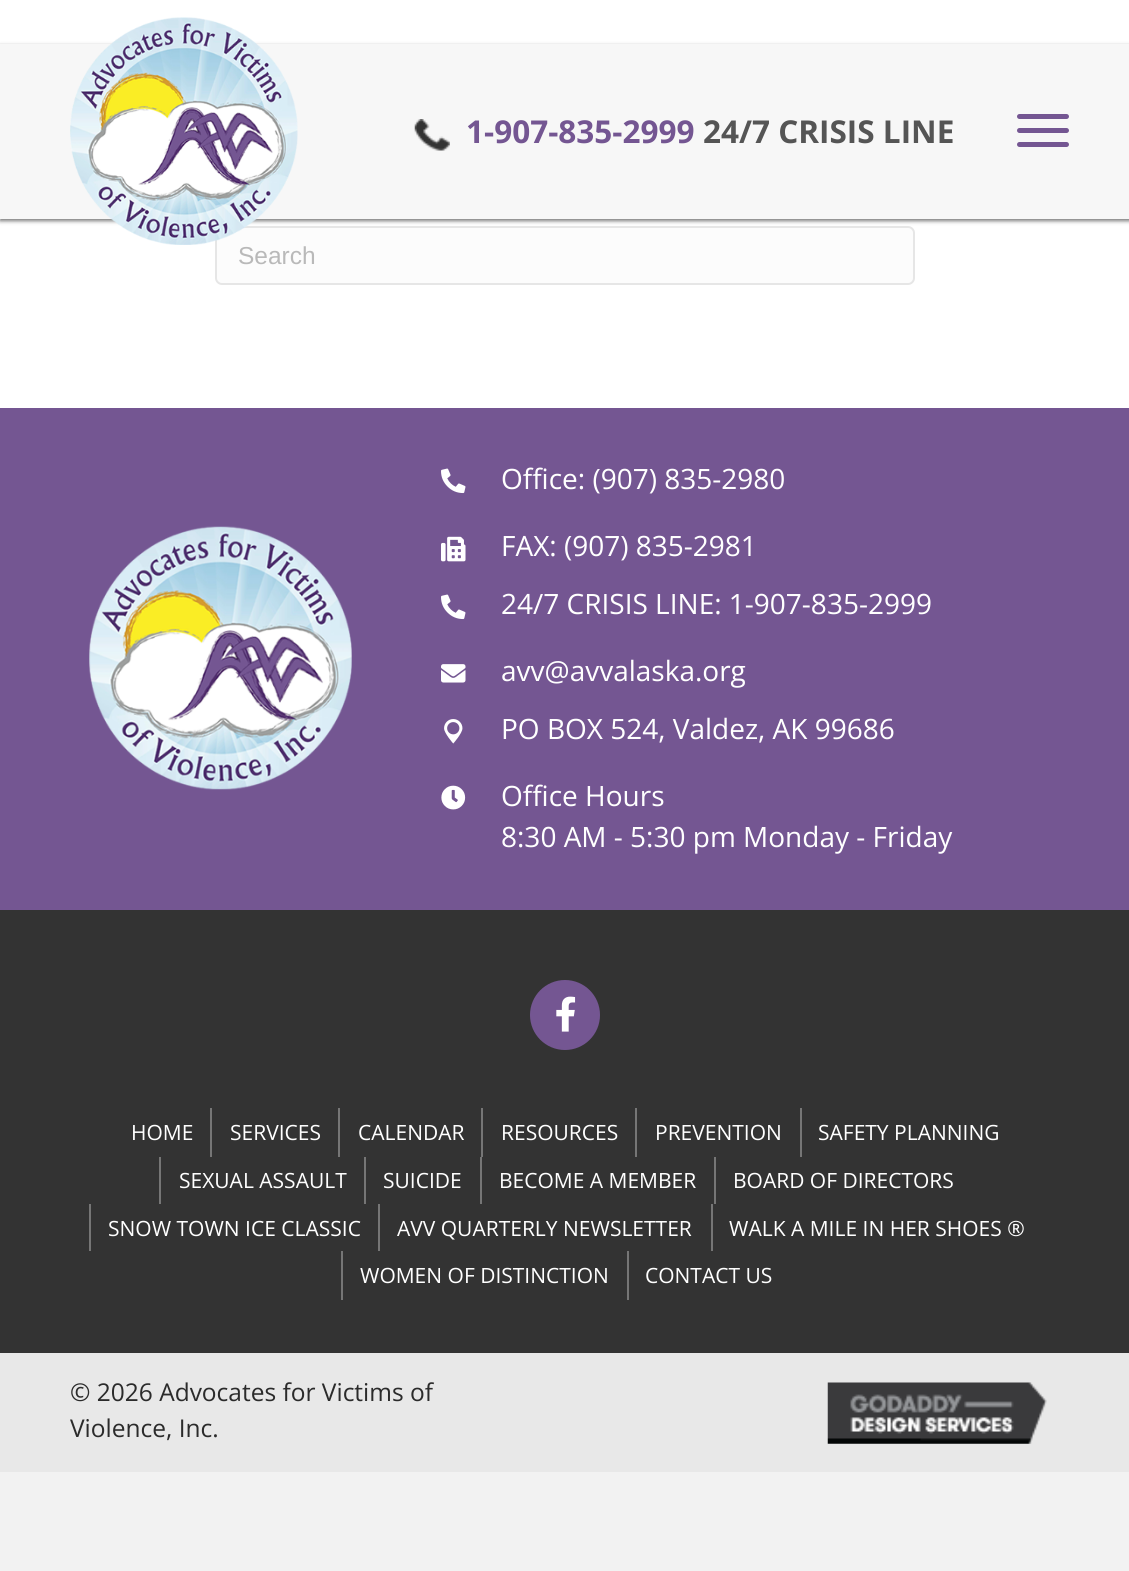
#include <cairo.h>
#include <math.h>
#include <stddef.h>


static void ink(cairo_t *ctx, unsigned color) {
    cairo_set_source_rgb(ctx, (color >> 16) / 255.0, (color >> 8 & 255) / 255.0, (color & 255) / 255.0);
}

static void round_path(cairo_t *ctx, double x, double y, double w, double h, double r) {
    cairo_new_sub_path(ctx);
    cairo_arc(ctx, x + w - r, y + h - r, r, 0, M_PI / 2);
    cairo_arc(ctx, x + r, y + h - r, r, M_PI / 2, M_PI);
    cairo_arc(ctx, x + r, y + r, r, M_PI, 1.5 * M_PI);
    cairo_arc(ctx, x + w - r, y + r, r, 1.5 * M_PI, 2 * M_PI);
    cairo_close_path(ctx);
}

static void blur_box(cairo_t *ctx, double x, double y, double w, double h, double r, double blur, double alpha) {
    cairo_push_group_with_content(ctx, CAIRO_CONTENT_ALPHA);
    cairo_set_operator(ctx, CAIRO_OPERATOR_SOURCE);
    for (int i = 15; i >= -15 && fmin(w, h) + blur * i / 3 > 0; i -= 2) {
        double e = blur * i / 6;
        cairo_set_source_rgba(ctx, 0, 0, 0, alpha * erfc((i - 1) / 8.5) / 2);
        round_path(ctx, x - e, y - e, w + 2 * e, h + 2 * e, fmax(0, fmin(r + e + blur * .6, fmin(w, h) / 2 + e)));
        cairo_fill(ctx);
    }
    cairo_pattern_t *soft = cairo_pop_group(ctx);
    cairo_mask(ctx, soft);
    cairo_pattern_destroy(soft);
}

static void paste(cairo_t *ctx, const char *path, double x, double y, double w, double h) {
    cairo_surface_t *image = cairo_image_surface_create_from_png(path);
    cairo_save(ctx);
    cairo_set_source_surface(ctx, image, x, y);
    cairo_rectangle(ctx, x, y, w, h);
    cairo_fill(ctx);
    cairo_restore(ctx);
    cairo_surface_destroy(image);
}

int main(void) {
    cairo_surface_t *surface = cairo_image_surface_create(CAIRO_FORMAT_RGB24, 1129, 1571);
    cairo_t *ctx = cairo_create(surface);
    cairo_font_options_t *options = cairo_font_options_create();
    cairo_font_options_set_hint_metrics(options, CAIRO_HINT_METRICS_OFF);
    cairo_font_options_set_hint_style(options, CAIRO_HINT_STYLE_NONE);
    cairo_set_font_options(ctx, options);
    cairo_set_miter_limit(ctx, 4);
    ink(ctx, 0xF2F2F2);
    cairo_paint(ctx);
    ink(ctx, 0xFFFFFF);
    cairo_rectangle(ctx, 0, 0, 1129, 408);
    cairo_fill(ctx);
    ink(ctx, 0xFCFCFC);
    round_path(ctx, 216, 227, 698, 57, 6);
    cairo_fill_preserve(ctx);
    ink(ctx, 0xE6E6E6);
    cairo_stroke(ctx);
    ink(ctx, 0x777777);
    blur_box(ctx, 0, 46, 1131, 175, 0, 2, 1);
    ink(ctx, 0xF7F7F7);
    cairo_rectangle(ctx, 0, 44, 1129, 175);
    cairo_fill(ctx);
    paste(ctx, "media/1.png", 70, 17, 228, 228);
    paste(ctx, "media/2.png", 414, 119, 36, 32);
    cairo_select_font_face(ctx, "Open Sans", CAIRO_FONT_SLANT_NORMAL, CAIRO_FONT_WEIGHT_BOLD);
    cairo_set_font_size(ctx, 31.5);
    ink(ctx, 0x745692);
    cairo_move_to(ctx, 466, 143);
    cairo_show_text(ctx, "1-907-835-2999");
    ink(ctx, 0x555555);
    cairo_move_to(ctx, 703, 143);
    cairo_show_text(ctx, "24/7 CRISIS LINE");
    ink(ctx, 0x745692);
    round_path(ctx, 1017, 128, 52, 5, 2.5);
    cairo_fill(ctx);
    round_path(ctx, 1017, 114, 52, 5, 2.5);
    cairo_fill(ctx);
    round_path(ctx, 1017, 142, 52, 5, 2.5);
    cairo_fill(ctx);
    cairo_select_font_face(ctx, "Liberation Sans", CAIRO_FONT_SLANT_NORMAL, CAIRO_FONT_WEIGHT_NORMAL);
    cairo_set_font_size(ctx, 24.5);
    ink(ctx, 0xB9B9B9);
    cairo_move_to(ctx, 238, 264);
    cairo_show_text(ctx, "Search");
    ink(ctx, 0x745692);
    cairo_rectangle(ctx, 0, 408, 1129, 502);
    cairo_fill(ctx);
    paste(ctx, "media/3.png", 89, 526, 263, 264);
    paste(ctx, "media/4.png", 441, 468, 25, 26);
    cairo_select_font_face(ctx, "Open Sans", CAIRO_FONT_SLANT_NORMAL, CAIRO_FONT_WEIGHT_NORMAL);
    cairo_set_font_size(ctx, 28);
    ink(ctx, 0xFFFFFF);
    cairo_move_to(ctx, 501, 489);
    cairo_show_text(ctx, "Office: (907) 835-2980");
    paste(ctx, "media/5.png", 441, 536, 25, 26);
    cairo_move_to(ctx, 501, 556);
    cairo_show_text(ctx, "FAX: (907) 835-2981");
    paste(ctx, "media/4.png", 441, 594, 25, 26);
    cairo_move_to(ctx, 501, 614);
    cairo_show_text(ctx, "24/7 CRISIS LINE: 1-907-835-2999");
    paste(ctx, "media/6.png", 441, 664, 25, 19);
    cairo_move_to(ctx, 501, 681);
    cairo_show_text(ctx, "avv@avvalaska.org");
    paste(ctx, "media/7.png", 444, 719, 19, 25);
    cairo_move_to(ctx, 501, 739);
    cairo_show_text(ctx, "PO BOX 524, Valdez, AK 99686");
    paste(ctx, "media/8.png", 441, 785, 25, 25);
    cairo_move_to(ctx, 501, 806);
    cairo_show_text(ctx, "Office Hours");
    cairo_move_to(ctx, 501, 847);
    cairo_show_text(ctx, "8:30 AM - 5:30 pm Monday - Friday");
    ink(ctx, 0x333333);
    cairo_rectangle(ctx, 0, 910, 1129, 443);
    cairo_fill(ctx);
    ink(ctx, 0x745692);
    cairo_arc(ctx, 565, 1015, 35, 0, 2 * M_PI);
    cairo_fill(ctx);
    paste(ctx, "media/9.png", 556, 996, 20, 36);
    cairo_set_font_size(ctx, 21);
    ink(ctx, 0xFFFFFF);
    cairo_move_to(ctx, 131, 1140);
    cairo_show_text(ctx, "HOME");
    ink(ctx, 0x767676);
    cairo_rectangle(ctx, 210, 1108, 2, 49);
    cairo_fill(ctx);
    ink(ctx, 0xFFFFFF);
    cairo_move_to(ctx, 230, 1140);
    cairo_show_text(ctx, "SERVICES");
    ink(ctx, 0x767676);
    cairo_rectangle(ctx, 338, 1108, 2, 49);
    cairo_fill(ctx);
    ink(ctx, 0xFFFFFF);
    cairo_move_to(ctx, 358, 1140);
    cairo_show_text(ctx, "CALENDAR");
    ink(ctx, 0x767676);
    cairo_rectangle(ctx, 481, 1108, 2, 49);
    cairo_fill(ctx);
    ink(ctx, 0xFFFFFF);
    cairo_move_to(ctx, 501, 1140);
    cairo_show_text(ctx, "RESOURCES");
    ink(ctx, 0x767676);
    cairo_rectangle(ctx, 635, 1108, 2, 49);
    cairo_fill(ctx);
    ink(ctx, 0xFFFFFF);
    cairo_move_to(ctx, 655, 1140);
    cairo_show_text(ctx, "PREVENTION");
    ink(ctx, 0x767676);
    cairo_rectangle(ctx, 800, 1108, 2, 49);
    cairo_fill(ctx);
    ink(ctx, 0xFFFFFF);
    cairo_move_to(ctx, 818, 1140);
    cairo_show_text(ctx, "SAFETY PLANNING");
    ink(ctx, 0x767676);
    cairo_rectangle(ctx, 159, 1157, 2, 47);
    cairo_fill(ctx);
    ink(ctx, 0xFFFFFF);
    cairo_move_to(ctx, 179, 1188);
    cairo_show_text(ctx, "SEXUAL ASSAULT");
    ink(ctx, 0x767676);
    cairo_rectangle(ctx, 364, 1157, 2, 47);
    cairo_fill(ctx);
    ink(ctx, 0xFFFFFF);
    cairo_move_to(ctx, 383, 1188);
    cairo_show_text(ctx, "SUICIDE");
    ink(ctx, 0x767676);
    cairo_rectangle(ctx, 480, 1157, 2, 47);
    cairo_fill(ctx);
    ink(ctx, 0xFFFFFF);
    cairo_move_to(ctx, 499, 1188);
    cairo_show_text(ctx, "BECOME A MEMBER");
    ink(ctx, 0x767676);
    cairo_rectangle(ctx, 714, 1157, 2, 47);
    cairo_fill(ctx);
    ink(ctx, 0xFFFFFF);
    cairo_move_to(ctx, 733, 1188);
    cairo_show_text(ctx, "BOARD OF DIRECTORS");
    ink(ctx, 0x767676);
    cairo_rectangle(ctx, 89, 1204, 2, 47);
    cairo_fill(ctx);
    ink(ctx, 0xFFFFFF);
    cairo_move_to(ctx, 108, 1236);
    cairo_show_text(ctx, "SNOW TOWN ICE CLASSIC");
    ink(ctx, 0x767676);
    cairo_rectangle(ctx, 378, 1204, 2, 47);
    cairo_fill(ctx);
    ink(ctx, 0xFFFFFF);
    cairo_move_to(ctx, 397, 1236);
    cairo_show_text(ctx, "AVV QUARTERLY NEWSLETTER");
    ink(ctx, 0x767676);
    cairo_rectangle(ctx, 711, 1204, 2, 47);
    cairo_fill(ctx);
    ink(ctx, 0xFFFFFF);
    cairo_move_to(ctx, 729, 1236);
    cairo_show_text(ctx, "WALK A MILE IN HER SHOES ®");
    ink(ctx, 0x767676);
    cairo_rectangle(ctx, 341, 1251, 2, 49);
    cairo_fill(ctx);
    ink(ctx, 0xFFFFFF);
    cairo_move_to(ctx, 360, 1283);
    cairo_show_text(ctx, "WOMEN OF DISTINCTION");
    ink(ctx, 0x767676);
    cairo_rectangle(ctx, 627, 1251, 2, 49);
    cairo_fill(ctx);
    ink(ctx, 0xFFFFFF);
    cairo_move_to(ctx, 645, 1283);
    cairo_show_text(ctx, "CONTACT US");
    ink(ctx, 0xE8E8E8);
    cairo_rectangle(ctx, 0, 1353, 1129, 119);
    cairo_fill(ctx);
    cairo_set_font_size(ctx, 24.5);
    ink(ctx, 0x2B2B2B);
    cairo_move_to(ctx, 70, 1401);
    cairo_show_text(ctx, "© 2026 Advocates for Victims of");
    cairo_move_to(ctx, 70, 1437);
    cairo_show_text(ctx, "Violence, Inc.");
    paste(ctx, "media/10.png", 827, 1382, 220, 62);
    cairo_surface_write_to_png(surface, "image.png");
    cairo_font_options_destroy(options);
    cairo_destroy(ctx);
    cairo_surface_destroy(surface);
    return 0;
}
